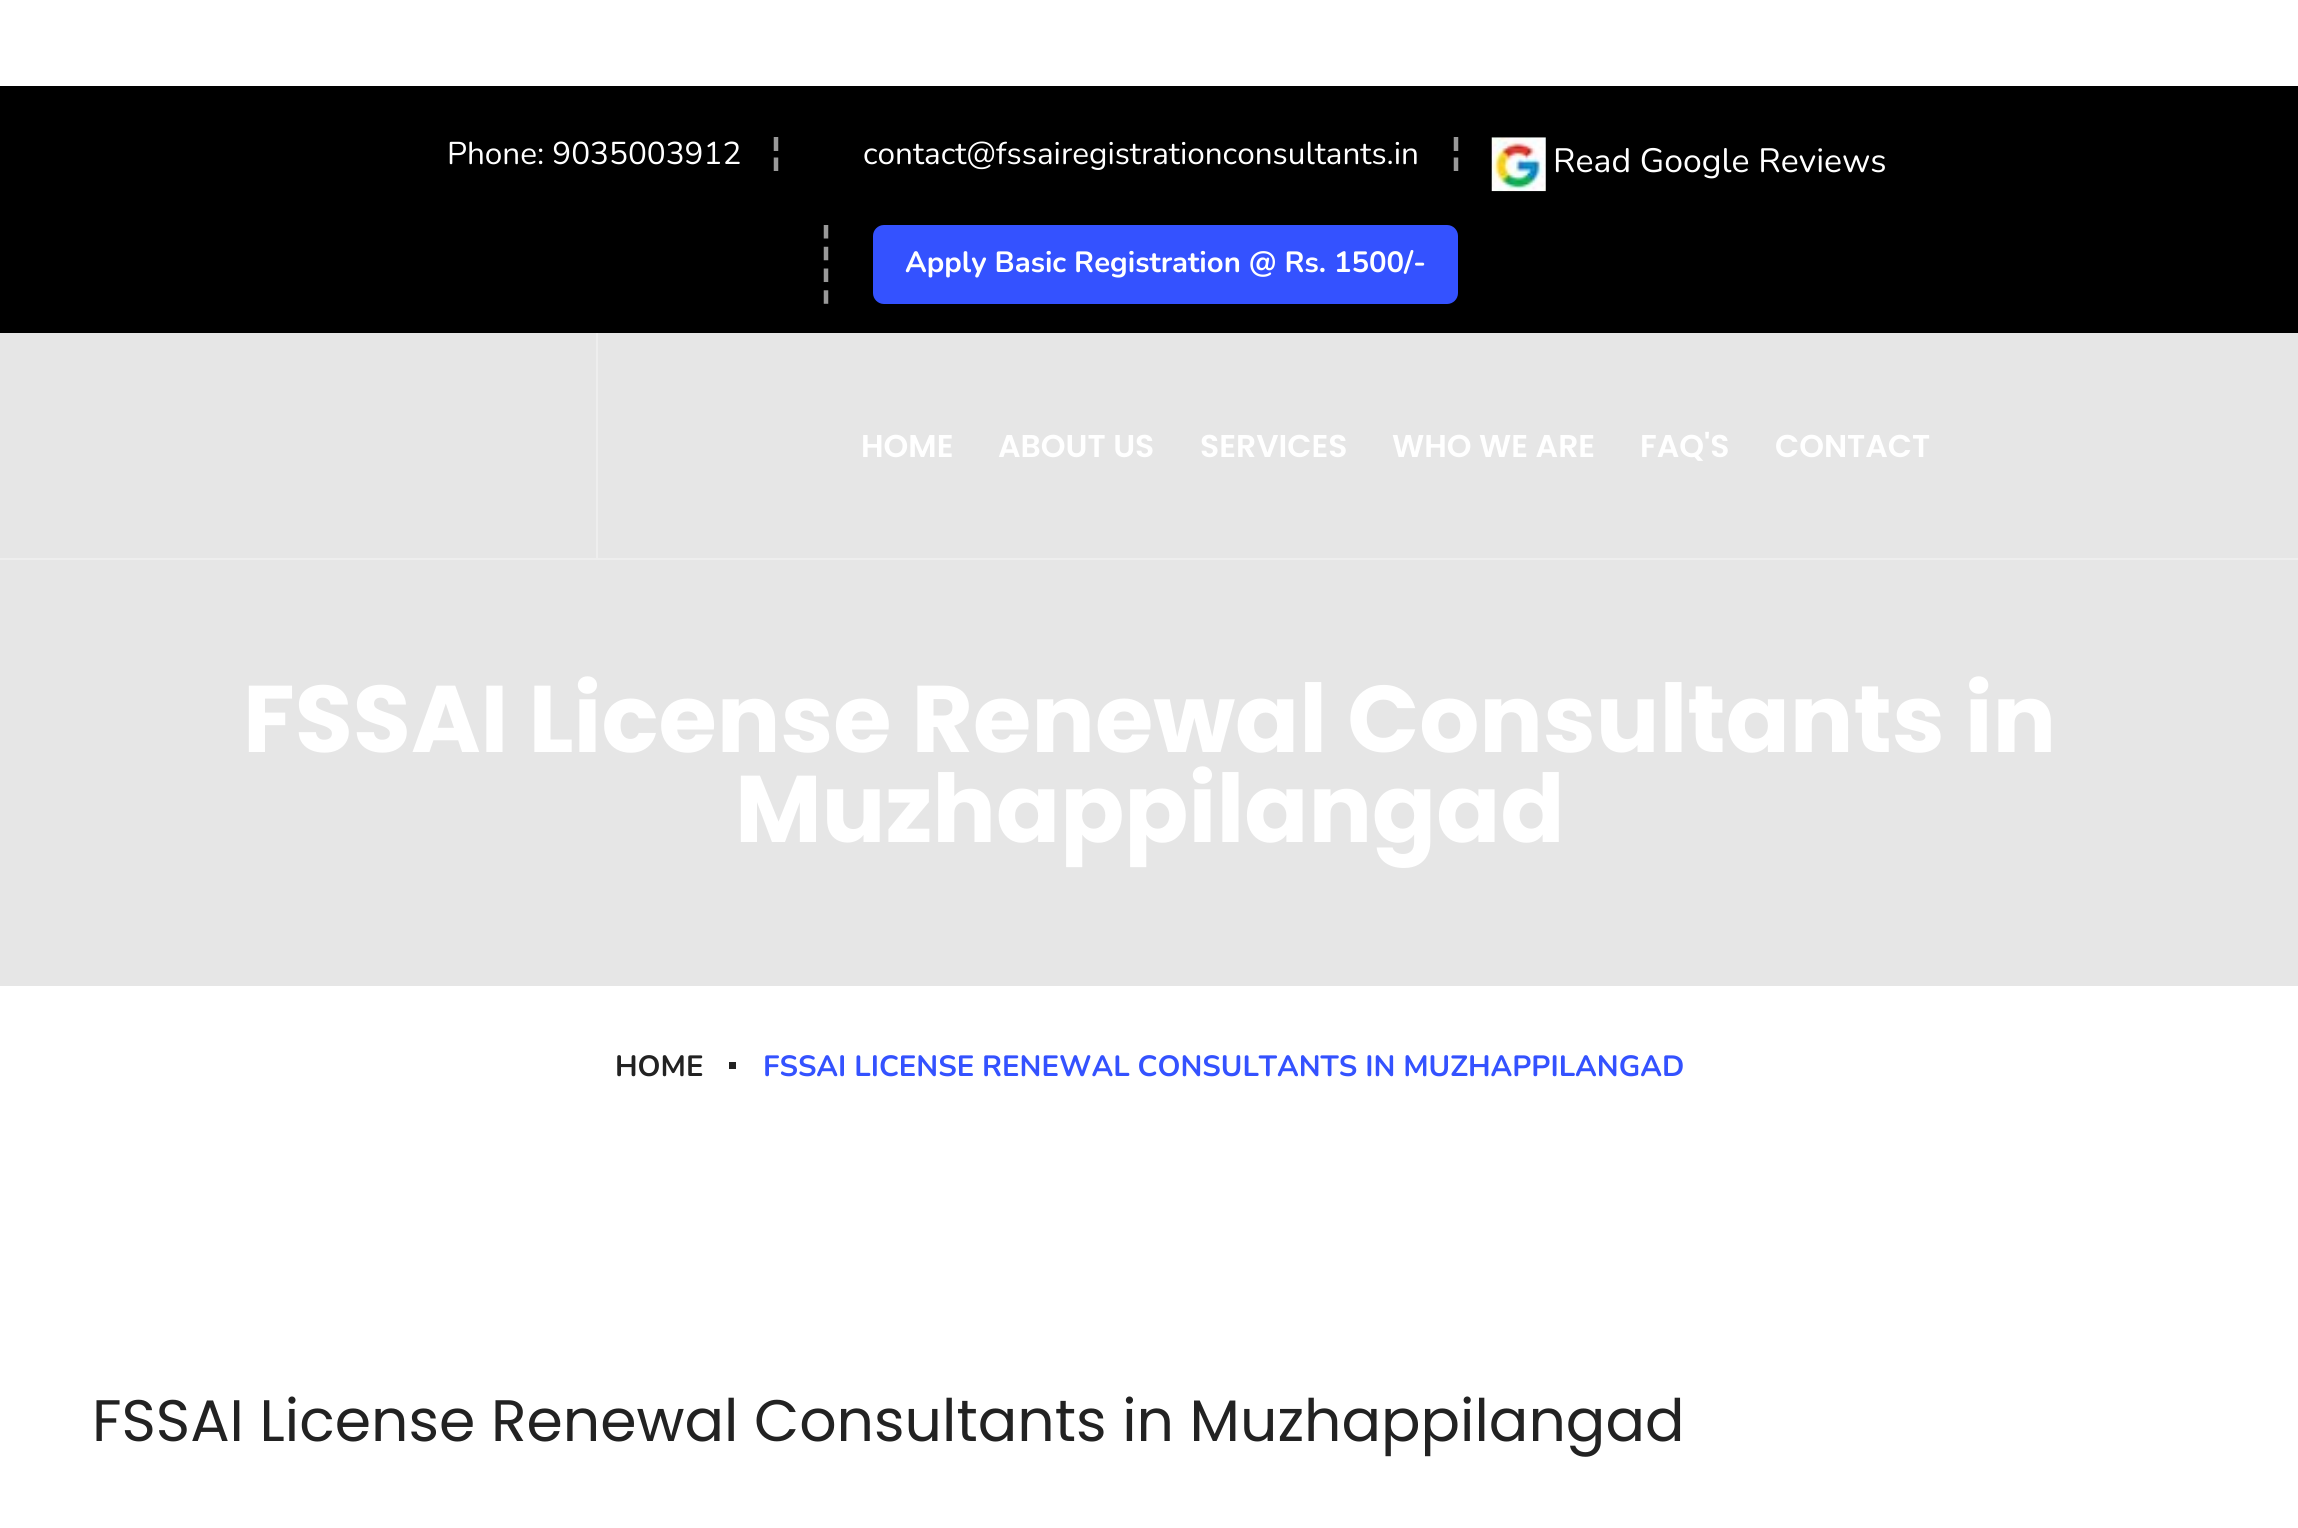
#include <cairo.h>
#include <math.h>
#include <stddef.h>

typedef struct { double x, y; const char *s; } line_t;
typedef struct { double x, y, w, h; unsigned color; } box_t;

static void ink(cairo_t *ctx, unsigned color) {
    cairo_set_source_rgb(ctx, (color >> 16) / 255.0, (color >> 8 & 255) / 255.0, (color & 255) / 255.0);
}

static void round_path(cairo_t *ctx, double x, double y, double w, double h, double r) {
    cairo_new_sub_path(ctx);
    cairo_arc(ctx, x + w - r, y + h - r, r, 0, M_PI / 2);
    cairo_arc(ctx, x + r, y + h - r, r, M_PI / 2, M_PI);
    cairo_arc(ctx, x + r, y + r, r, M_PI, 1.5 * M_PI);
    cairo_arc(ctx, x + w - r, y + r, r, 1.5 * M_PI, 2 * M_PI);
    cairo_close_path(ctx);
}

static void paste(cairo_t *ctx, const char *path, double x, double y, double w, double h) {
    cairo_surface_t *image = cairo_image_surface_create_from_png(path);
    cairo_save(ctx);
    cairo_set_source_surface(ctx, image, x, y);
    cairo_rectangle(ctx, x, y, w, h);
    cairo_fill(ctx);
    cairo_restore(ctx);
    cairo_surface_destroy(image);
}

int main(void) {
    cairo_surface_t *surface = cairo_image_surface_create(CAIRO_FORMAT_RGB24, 2298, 1528);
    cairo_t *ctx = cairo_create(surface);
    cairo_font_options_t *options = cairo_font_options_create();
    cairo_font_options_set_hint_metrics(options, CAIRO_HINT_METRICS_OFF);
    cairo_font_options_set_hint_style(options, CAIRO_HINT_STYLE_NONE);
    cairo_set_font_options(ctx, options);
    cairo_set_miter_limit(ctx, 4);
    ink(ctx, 0xFFFFFF);
    cairo_paint(ctx);
    ink(ctx, 0x000000);
    cairo_rectangle(ctx, 0, 86, 2298, 247);
    cairo_fill(ctx);
    cairo_new_path(ctx);
    cairo_move_to(ctx, 776, 137);
    cairo_line_to(ctx, 776, 151);
    cairo_move_to(ctx, 776, 157.5);
    cairo_line_to(ctx, 776, 171);
    ink(ctx, 0x999999);
    cairo_set_line_width(ctx, 4.5);
    cairo_stroke(ctx);
    cairo_select_font_face(ctx, "Nunito", CAIRO_FONT_SLANT_NORMAL, CAIRO_FONT_WEIGHT_NORMAL);
    cairo_set_font_size(ctx, 31.5);
    ink(ctx, 0xFFFFFF);
    cairo_move_to(ctx, 447, 164);
    cairo_show_text(ctx, "Phone: 9035003912");
    cairo_new_path(ctx);
    cairo_move_to(ctx, 1456, 137);
    cairo_line_to(ctx, 1456, 151);
    cairo_move_to(ctx, 1456, 157.5);
    cairo_line_to(ctx, 1456, 171);
    ink(ctx, 0x999999);
    cairo_stroke(ctx);
    ink(ctx, 0xFFFFFF);
    cairo_move_to(ctx, 863, 164);
    cairo_show_text(ctx, "contact@fssairegistrationconsultants.in");
    paste(ctx, "media/1.png", 1491, 137, 55, 55);
    cairo_set_font_size(ctx, 33.75);
    cairo_move_to(ctx, 1553, 172);
    cairo_show_text(ctx, "Read Google Reviews");
    cairo_new_path(ctx);
    cairo_move_to(ctx, 826, 225);
    cairo_line_to(ctx, 826, 304);
    ink(ctx, 0x999999);
    cairo_set_dash(ctx, (double[]){13.5, 8.26}, 2, 0);
    cairo_stroke(ctx);
    ink(ctx, 0x3452FF);
    round_path(ctx, 873, 225, 585, 79, 11);
    cairo_fill(ctx);
    cairo_select_font_face(ctx, "Nunito", CAIRO_FONT_SLANT_NORMAL, CAIRO_FONT_WEIGHT_BOLD);
    cairo_set_font_size(ctx, 29.25);
    ink(ctx, 0xFFFFFF);
    cairo_move_to(ctx, 905, 272);
    cairo_show_text(ctx, "Apply Basic Registration @ Rs. 1500/-");
    {
        static const box_t items[] = {
            {0, 333, 2298, 653, 0xE6E6E6},
            {0, 558, 2298, 2, 0xEEEEEE},
            {596, 333, 2, 225, 0xEEEEEE},
        };
        for (size_t i = 0; i < sizeof items / sizeof *items; i++) {
            ink(ctx, items[i].color);
            cairo_rectangle(ctx, items[i].x, items[i].y, items[i].w, items[i].h);
            cairo_fill(ctx);
        }
    }
    cairo_select_font_face(ctx, "Poppins SemiBold", CAIRO_FONT_SLANT_NORMAL, CAIRO_FONT_WEIGHT_NORMAL);
    cairo_set_font_size(ctx, 31.5);
    ink(ctx, 0xFFFFFF);
    {
        static const line_t items[] = {
            {861, 457, "HOME"},
            {998, 457, "ABOUT US"},
            {1200, 457, "SERVICES"},
            {1392, 457, "WHO WE ARE"},
            {1640, 457, "FAQ'S"},
            {1775, 457, "CONTACT"},
        };
        for (size_t i = 0; i < sizeof items / sizeof *items; i++) {
            cairo_move_to(ctx, items[i].x, items[i].y);
            cairo_show_text(ctx, items[i].s);
        }
    }
    cairo_select_font_face(ctx, "Poppins", CAIRO_FONT_SLANT_NORMAL, CAIRO_FONT_WEIGHT_BOLD);
    cairo_set_font_size(ctx, 94.5);
    cairo_move_to(ctx, 243, 752);
    cairo_show_text(ctx, "FSSAI License Renewal Consultants in");
    cairo_move_to(ctx, 735, 842);
    cairo_show_text(ctx, "Muzhappilangad");
    cairo_select_font_face(ctx, "Nunito", CAIRO_FONT_SLANT_NORMAL, CAIRO_FONT_WEIGHT_BOLD);
    cairo_set_font_size(ctx, 29.25);
    ink(ctx, 0x222222);
    cairo_move_to(ctx, 615, 1076);
    cairo_show_text(ctx, "HOME");
    cairo_rectangle(ctx, 729, 1062, 7, 7);
    cairo_fill(ctx);
    ink(ctx, 0x3452FF);
    cairo_move_to(ctx, 763, 1076);
    cairo_show_text(ctx, "FSSAI LICENSE RENEWAL CONSULTANTS IN MUZHAPPILANGAD");
    cairo_select_font_face(ctx, "Poppins", CAIRO_FONT_SLANT_NORMAL, CAIRO_FONT_WEIGHT_NORMAL);
    cairo_set_font_size(ctx, 58.5);
    ink(ctx, 0x222222);
    cairo_move_to(ctx, 92, 1441);
    cairo_show_text(ctx, "FSSAI License Renewal Consultants in Muzhappilangad");
    cairo_surface_write_to_png(surface, "image.png");
    cairo_font_options_destroy(options);
    cairo_destroy(ctx);
    cairo_surface_destroy(surface);
    return 0;
}
